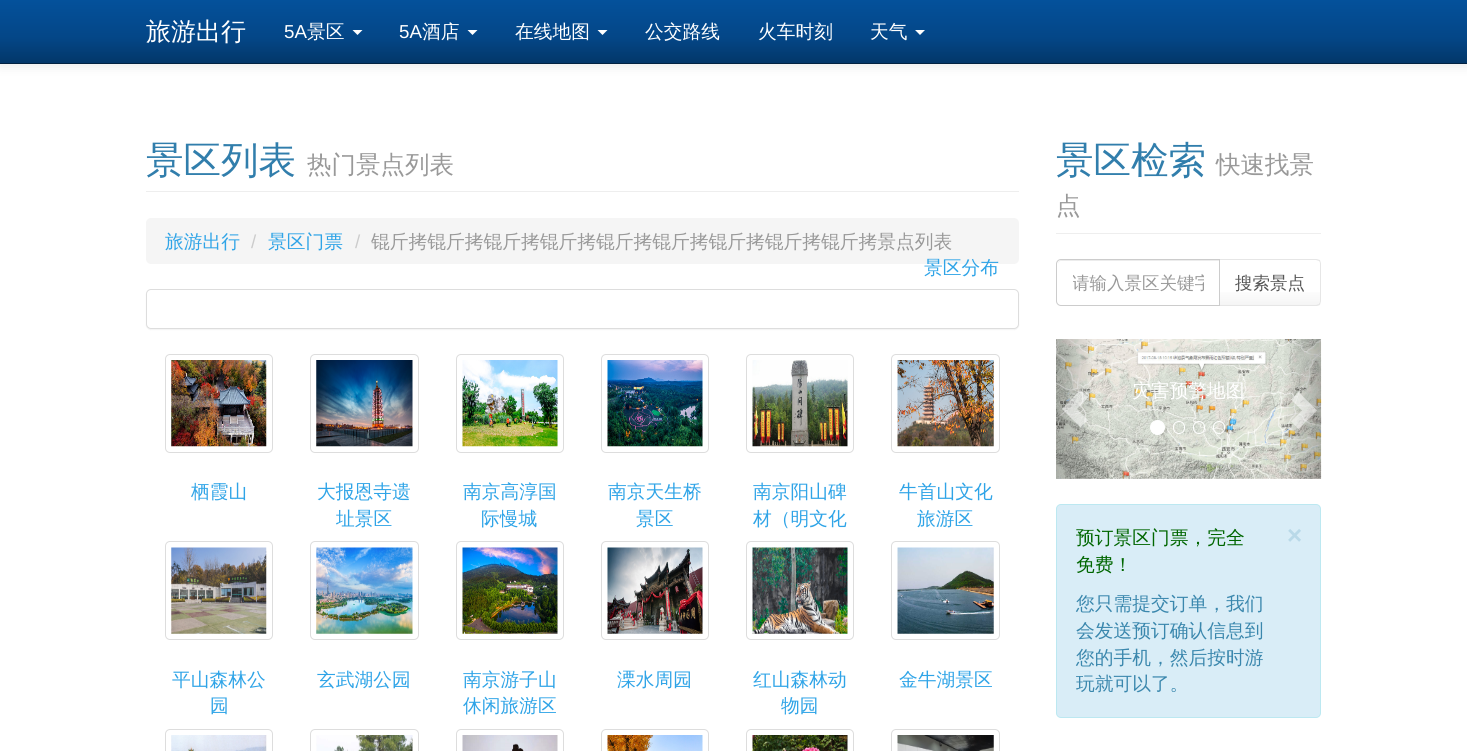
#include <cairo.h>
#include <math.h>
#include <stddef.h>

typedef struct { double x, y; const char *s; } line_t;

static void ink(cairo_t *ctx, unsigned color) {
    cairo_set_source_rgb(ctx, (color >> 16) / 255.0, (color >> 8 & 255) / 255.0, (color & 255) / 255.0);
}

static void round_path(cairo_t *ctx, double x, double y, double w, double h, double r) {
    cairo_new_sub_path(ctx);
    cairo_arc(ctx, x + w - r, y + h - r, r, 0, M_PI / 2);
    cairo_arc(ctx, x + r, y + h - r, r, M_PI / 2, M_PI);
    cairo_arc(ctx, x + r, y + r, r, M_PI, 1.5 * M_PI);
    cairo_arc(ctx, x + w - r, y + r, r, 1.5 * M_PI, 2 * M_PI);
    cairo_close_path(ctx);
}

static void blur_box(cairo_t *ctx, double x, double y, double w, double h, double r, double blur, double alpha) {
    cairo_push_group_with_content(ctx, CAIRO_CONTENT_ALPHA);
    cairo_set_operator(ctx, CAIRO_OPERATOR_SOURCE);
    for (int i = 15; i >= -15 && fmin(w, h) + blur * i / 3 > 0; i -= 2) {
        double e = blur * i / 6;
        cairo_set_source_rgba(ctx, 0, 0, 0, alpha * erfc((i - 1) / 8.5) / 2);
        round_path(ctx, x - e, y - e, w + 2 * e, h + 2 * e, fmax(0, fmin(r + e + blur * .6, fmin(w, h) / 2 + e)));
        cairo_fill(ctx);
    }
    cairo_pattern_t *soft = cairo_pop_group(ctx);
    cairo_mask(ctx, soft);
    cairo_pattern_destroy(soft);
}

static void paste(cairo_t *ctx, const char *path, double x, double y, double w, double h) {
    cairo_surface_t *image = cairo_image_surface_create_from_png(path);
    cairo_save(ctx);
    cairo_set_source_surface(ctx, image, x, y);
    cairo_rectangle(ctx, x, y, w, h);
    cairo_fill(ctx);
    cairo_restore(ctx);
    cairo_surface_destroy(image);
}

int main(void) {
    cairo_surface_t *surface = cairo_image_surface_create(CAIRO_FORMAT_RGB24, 1467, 751);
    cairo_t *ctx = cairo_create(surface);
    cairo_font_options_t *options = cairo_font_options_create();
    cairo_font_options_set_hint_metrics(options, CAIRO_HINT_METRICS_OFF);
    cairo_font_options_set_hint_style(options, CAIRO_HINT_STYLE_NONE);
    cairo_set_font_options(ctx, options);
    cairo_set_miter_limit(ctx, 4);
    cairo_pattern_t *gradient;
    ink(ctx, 0xFFFFFF);
    cairo_paint(ctx);
    ink(ctx, 0x000000);
    blur_box(ctx, 0, 1, 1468, 64, 0, 6, 0.1);
    gradient = cairo_pattern_create_linear(734, 0, 734, 63);
    cairo_pattern_add_color_stop_rgba(gradient, 0, 0.016, 0.318, 0.608, 1);
    cairo_pattern_add_color_stop_rgba(gradient, 0.6, 0.016, 0.275, 0.529, 1);
    cairo_pattern_add_color_stop_rgba(gradient, 1, 0.012, 0.216, 0.412, 1);
    cairo_set_source(ctx, gradient);
    cairo_pattern_destroy(gradient);
    cairo_rectangle(ctx, 0, 0, 1467, 63);
    cairo_fill(ctx);
    ink(ctx, 0x022241);
    cairo_rectangle(ctx, 0, 63, 1467, 1);
    cairo_fill(ctx);
    cairo_select_font_face(ctx, "WenQuanYi Zen Hei Medium", CAIRO_FONT_SLANT_NORMAL, CAIRO_FONT_WEIGHT_NORMAL);
    cairo_set_font_size(ctx, 25);
    ink(ctx, 0xFFFFFF);
    cairo_move_to(ctx, 146, 40);
    cairo_show_text(ctx, "旅游出行");
    cairo_select_font_face(ctx, "Liberation Sans", CAIRO_FONT_SLANT_NORMAL, CAIRO_FONT_WEIGHT_NORMAL);
    cairo_set_font_size(ctx, 18.75);
    cairo_move_to(ctx, 284, 38);
    cairo_show_text(ctx, "5A");
    cairo_select_font_face(ctx, "WenQuanYi Zen Hei Medium", CAIRO_FONT_SLANT_NORMAL, CAIRO_FONT_WEIGHT_NORMAL);
    cairo_move_to(ctx, 307, 38);
    cairo_show_text(ctx, "景区");
    cairo_new_path(ctx);
    cairo_move_to(ctx, 352.5, 30);
    cairo_line_to(ctx, 362.5, 30);
    cairo_line_to(ctx, 357.5, 35);
    cairo_close_path(ctx);
    cairo_fill(ctx);
    cairo_select_font_face(ctx, "Liberation Sans", CAIRO_FONT_SLANT_NORMAL, CAIRO_FONT_WEIGHT_NORMAL);
    cairo_move_to(ctx, 399, 38);
    cairo_show_text(ctx, "5A");
    cairo_select_font_face(ctx, "WenQuanYi Zen Hei Medium", CAIRO_FONT_SLANT_NORMAL, CAIRO_FONT_WEIGHT_NORMAL);
    cairo_move_to(ctx, 422, 38);
    cairo_show_text(ctx, "酒店");
    cairo_new_path(ctx);
    cairo_move_to(ctx, 467.5, 30);
    cairo_line_to(ctx, 477.5, 30);
    cairo_line_to(ctx, 472.5, 35);
    cairo_close_path(ctx);
    cairo_fill(ctx);
    cairo_move_to(ctx, 515, 38);
    cairo_show_text(ctx, "在线地图");
    cairo_new_path(ctx);
    cairo_move_to(ctx, 597.5, 30);
    cairo_line_to(ctx, 607.5, 30);
    cairo_line_to(ctx, 602.5, 35);
    cairo_close_path(ctx);
    cairo_fill(ctx);
    {
        static const line_t items[] = {
            {645, 38, "公交路线"},
            {758, 38, "火车时刻"},
            {870, 38, "天气"},
        };
        for (size_t i = 0; i < sizeof items / sizeof *items; i++) {
            cairo_move_to(ctx, items[i].x, items[i].y);
            cairo_show_text(ctx, items[i].s);
        }
    }
    cairo_new_path(ctx);
    cairo_move_to(ctx, 915, 30);
    cairo_line_to(ctx, 925, 30);
    cairo_line_to(ctx, 920, 35);
    cairo_close_path(ctx);
    cairo_fill(ctx);
    ink(ctx, 0xEEEEEE);
    cairo_rectangle(ctx, 146, 191, 873, 1);
    cairo_fill(ctx);
    cairo_set_font_size(ctx, 37.5);
    ink(ctx, 0x317EAC);
    cairo_move_to(ctx, 146, 173);
    cairo_show_text(ctx, "景区列表");
    cairo_set_font_size(ctx, 24.5);
    ink(ctx, 0x999999);
    cairo_move_to(ctx, 307, 173);
    cairo_show_text(ctx, "热门景点列表");
    ink(ctx, 0xF5F5F5);
    round_path(ctx, 146, 218, 873, 46, 5);
    cairo_fill(ctx);
    cairo_set_font_size(ctx, 18.75);
    ink(ctx, 0x2FA4E7);
    cairo_move_to(ctx, 165, 248);
    cairo_show_text(ctx, "旅游出行");
    cairo_select_font_face(ctx, "Liberation Sans", CAIRO_FONT_SLANT_NORMAL, CAIRO_FONT_WEIGHT_NORMAL);
    ink(ctx, 0xCCCCCC);
    cairo_move_to(ctx, 251, 248);
    cairo_show_text(ctx, "/");
    cairo_select_font_face(ctx, "WenQuanYi Zen Hei Medium", CAIRO_FONT_SLANT_NORMAL, CAIRO_FONT_WEIGHT_NORMAL);
    ink(ctx, 0x2FA4E7);
    cairo_move_to(ctx, 268, 248);
    cairo_show_text(ctx, "景区门票");
    cairo_select_font_face(ctx, "Liberation Sans", CAIRO_FONT_SLANT_NORMAL, CAIRO_FONT_WEIGHT_NORMAL);
    ink(ctx, 0xCCCCCC);
    cairo_move_to(ctx, 355, 248);
    cairo_show_text(ctx, "/");
    cairo_select_font_face(ctx, "WenQuanYi Zen Hei Medium", CAIRO_FONT_SLANT_NORMAL, CAIRO_FONT_WEIGHT_NORMAL);
    ink(ctx, 0x999999);
    cairo_move_to(ctx, 371, 248);
    cairo_show_text(ctx, "锟斤拷锟斤拷锟斤拷锟斤拷锟斤拷锟斤拷锟斤拷锟斤拷锟斤拷景点列表");
    ink(ctx, 0x2FA4E7);
    cairo_move_to(ctx, 924, 274);
    cairo_show_text(ctx, "景区分布");
    ink(ctx, 0x000000);
    blur_box(ctx, 146, 290, 873, 40, 5, 0.5, 0.05);
    ink(ctx, 0xFFFFFF);
    round_path(ctx, 146.5, 289.5, 872, 39, 4.5);
    cairo_fill_preserve(ctx);
    ink(ctx, 0xDDDDDD);
    cairo_set_line_width(ctx, 1);
    cairo_stroke(ctx);
    round_path(ctx, 165.5, 354.5, 107, 98, 4.5);
    cairo_stroke(ctx);
    paste(ctx, "media/1.png", 171, 360, 96, 87);
    ink(ctx, 0x2FA4E7);
    cairo_move_to(ctx, 191, 498);
    cairo_show_text(ctx, "栖霞山");
    round_path(ctx, 310.5, 354.5, 108, 98, 4.5);
    ink(ctx, 0xDDDDDD);
    cairo_stroke(ctx);
    paste(ctx, "media/2.png", 316, 360, 97, 87);
    ink(ctx, 0x2FA4E7);
    cairo_move_to(ctx, 317, 498);
    cairo_show_text(ctx, "大报恩寺遗");
    cairo_move_to(ctx, 336, 525);
    cairo_show_text(ctx, "址景区");
    round_path(ctx, 456.5, 354.5, 107, 98, 4.5);
    ink(ctx, 0xDDDDDD);
    cairo_stroke(ctx);
    paste(ctx, "media/3.png", 462, 360, 96, 87);
    ink(ctx, 0x2FA4E7);
    cairo_move_to(ctx, 463, 498);
    cairo_show_text(ctx, "南京高淳国");
    cairo_move_to(ctx, 481, 525);
    cairo_show_text(ctx, "际慢城");
    round_path(ctx, 601.5, 354.5, 107, 98, 4.5);
    ink(ctx, 0xDDDDDD);
    cairo_stroke(ctx);
    paste(ctx, "media/4.png", 607, 360, 96, 87);
    ink(ctx, 0x2FA4E7);
    cairo_move_to(ctx, 608, 498);
    cairo_show_text(ctx, "南京天生桥");
    cairo_move_to(ctx, 636, 525);
    cairo_show_text(ctx, "景区");
    round_path(ctx, 746.5, 354.5, 107, 98, 4.5);
    ink(ctx, 0xDDDDDD);
    cairo_stroke(ctx);
    paste(ctx, "media/5.png", 752, 360, 96, 87);
    ink(ctx, 0x2FA4E7);
    cairo_move_to(ctx, 753, 498);
    cairo_show_text(ctx, "南京阳山碑");
    cairo_move_to(ctx, 753, 525);
    cairo_show_text(ctx, "材（明文化");
    round_path(ctx, 891.5, 354.5, 108, 98, 4.5);
    ink(ctx, 0xDDDDDD);
    cairo_stroke(ctx);
    paste(ctx, "media/6.png", 897, 360, 97, 87);
    ink(ctx, 0x2FA4E7);
    cairo_move_to(ctx, 899, 498);
    cairo_show_text(ctx, "牛首山文化");
    cairo_move_to(ctx, 917, 525);
    cairo_show_text(ctx, "旅游区");
    round_path(ctx, 165.5, 541.5, 107, 98, 4.5);
    ink(ctx, 0xDDDDDD);
    cairo_stroke(ctx);
    paste(ctx, "media/7.png", 171, 547, 96, 87);
    ink(ctx, 0x2FA4E7);
    cairo_move_to(ctx, 172, 686);
    cairo_show_text(ctx, "平山森林公");
    cairo_move_to(ctx, 210, 712);
    cairo_show_text(ctx, "园");
    round_path(ctx, 310.5, 541.5, 108, 98, 4.5);
    ink(ctx, 0xDDDDDD);
    cairo_stroke(ctx);
    paste(ctx, "media/8.png", 316, 547, 97, 87);
    ink(ctx, 0x2FA4E7);
    cairo_move_to(ctx, 317, 686);
    cairo_show_text(ctx, "玄武湖公园");
    round_path(ctx, 456.5, 541.5, 107, 98, 4.5);
    ink(ctx, 0xDDDDDD);
    cairo_stroke(ctx);
    paste(ctx, "media/9.png", 462, 547, 96, 87);
    ink(ctx, 0x2FA4E7);
    cairo_move_to(ctx, 463, 686);
    cairo_show_text(ctx, "南京游子山");
    cairo_move_to(ctx, 463, 712);
    cairo_show_text(ctx, "休闲旅游区");
    round_path(ctx, 601.5, 541.5, 107, 98, 4.5);
    ink(ctx, 0xDDDDDD);
    cairo_stroke(ctx);
    paste(ctx, "media/10.png", 607, 547, 96, 87);
    ink(ctx, 0x2FA4E7);
    cairo_move_to(ctx, 617, 686);
    cairo_show_text(ctx, "溧水周园");
    round_path(ctx, 746.5, 541.5, 107, 98, 4.5);
    ink(ctx, 0xDDDDDD);
    cairo_stroke(ctx);
    paste(ctx, "media/11.png", 752, 547, 96, 87);
    ink(ctx, 0x2FA4E7);
    cairo_move_to(ctx, 753, 686);
    cairo_show_text(ctx, "红山森林动");
    cairo_move_to(ctx, 781, 712);
    cairo_show_text(ctx, "物园");
    round_path(ctx, 891.5, 541.5, 108, 98, 4.5);
    ink(ctx, 0xDDDDDD);
    cairo_stroke(ctx);
    paste(ctx, "media/12.png", 897, 547, 97, 87);
    ink(ctx, 0x2FA4E7);
    cairo_move_to(ctx, 899, 686);
    cairo_show_text(ctx, "金牛湖景区");
    round_path(ctx, 165.5, 729.5, 107, 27, 4.5);
    ink(ctx, 0xDDDDDD);
    cairo_stroke(ctx);
    paste(ctx, "media/13.png", 171, 735, 96, 16);
    round_path(ctx, 310.5, 729.5, 108, 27, 4.5);
    cairo_stroke(ctx);
    paste(ctx, "media/14.png", 316, 735, 97, 16);
    round_path(ctx, 456.5, 729.5, 107, 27, 4.5);
    cairo_stroke(ctx);
    paste(ctx, "media/15.png", 462, 735, 96, 16);
    round_path(ctx, 601.5, 729.5, 107, 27, 4.5);
    cairo_stroke(ctx);
    paste(ctx, "media/16.png", 607, 735, 96, 16);
    round_path(ctx, 746.5, 729.5, 107, 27, 4.5);
    cairo_stroke(ctx);
    paste(ctx, "media/17.png", 752, 735, 96, 16);
    round_path(ctx, 891.5, 729.5, 108, 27, 4.5);
    cairo_stroke(ctx);
    paste(ctx, "media/18.png", 897, 735, 97, 16);
    ink(ctx, 0xEEEEEE);
    cairo_rectangle(ctx, 1056, 233, 265, 1);
    cairo_fill(ctx);
    cairo_set_font_size(ctx, 37.5);
    ink(ctx, 0x317EAC);
    cairo_move_to(ctx, 1056, 173);
    cairo_show_text(ctx, "景区检索");
    cairo_set_font_size(ctx, 24.5);
    ink(ctx, 0x999999);
    cairo_move_to(ctx, 1216, 173);
    cairo_show_text(ctx, "快速找景");
    cairo_move_to(ctx, 1056, 214);
    cairo_show_text(ctx, "点");
    ink(ctx, 0xE6E6E6);
    cairo_new_path(ctx);
    cairo_move_to(ctx, 1219, 259);
    cairo_line_to(ctx, 1220, 260);
    cairo_line_to(ctx, 1316, 260);
    cairo_line_to(ctx, 1319, 261);
    cairo_line_to(ctx, 1320, 260);
    cairo_curve_to(ctx, 1319, 260, 1318, 259, 1316, 259);
    cairo_close_path(ctx);
    cairo_fill(ctx);
    gradient = cairo_pattern_create_linear(1270, 260, 1270, 305);
    cairo_pattern_add_color_stop_rgba(gradient, 0, 1, 1, 1, 1);
    cairo_pattern_add_color_stop_rgba(gradient, 0.6, 1, 1, 1, 1);
    cairo_pattern_add_color_stop_rgba(gradient, 1, 0.961, 0.961, 0.961, 1);
    cairo_set_source(ctx, gradient);
    cairo_pattern_destroy(gradient);
    cairo_rectangle(ctx, 1220, 292, 100, 13);
    cairo_fill(ctx);
    cairo_set_source_rgba(ctx, 0, 0, 0, 0.1);
    cairo_new_path(ctx);
    cairo_move_to(ctx, 1320, 260);
    cairo_curve_to(ctx, 1320, 261, 1321, 262, 1321, 264);
    cairo_line_to(ctx, 1321, 301);
    cairo_curve_to(ctx, 1321, 302, 1320, 304, 1320, 305);
    cairo_line_to(ctx, 1319, 304);
    cairo_curve_to(ctx, 1320, 303, 1320, 302, 1320, 301);
    cairo_line_to(ctx, 1320, 264);
    cairo_curve_to(ctx, 1320, 263, 1320, 262, 1319, 261);
    cairo_close_path(ctx);
    cairo_fill(ctx);
    ink(ctx, 0xE6E6E6);
    cairo_new_path(ctx);
    cairo_move_to(ctx, 1320, 305);
    cairo_line_to(ctx, 1317, 306);
    cairo_line_to(ctx, 1219, 306);
    cairo_line_to(ctx, 1220, 305);
    cairo_line_to(ctx, 1316, 305);
    cairo_line_to(ctx, 1319, 304);
    cairo_close_path(ctx);
    cairo_fill(ctx);
    ink(ctx, 0xFFFFFF);
    cairo_new_path(ctx);
    cairo_move_to(ctx, 1061, 259);
    cairo_line_to(ctx, 1220, 259);
    cairo_line_to(ctx, 1220, 306);
    cairo_line_to(ctx, 1061, 306);
    cairo_curve_to(ctx, 1058, 306, 1056, 304, 1056, 301);
    cairo_line_to(ctx, 1056, 264);
    cairo_curve_to(ctx, 1056, 261, 1058, 259, 1061, 259);
    cairo_close_path(ctx);
    cairo_fill(ctx);
    ink(ctx, 0xECECEC);
    cairo_new_path(ctx);
    cairo_move_to(ctx, 1061, 261);
    cairo_line_to(ctx, 1219, 261);
    cairo_line_to(ctx, 1219, 260);
    cairo_line_to(ctx, 1062, 260);
    cairo_curve_to(ctx, 1059, 260, 1058, 262, 1058, 265);
    cairo_curve_to(ctx, 1058, 263, 1059, 261, 1061, 261);
    cairo_close_path(ctx);
    cairo_fill(ctx);
    cairo_new_path(ctx);
    cairo_move_to(ctx, 1061, 259.5);
    cairo_line_to(ctx, 1219.5, 259.5);
    cairo_line_to(ctx, 1219.5, 305.5);
    cairo_line_to(ctx, 1061, 305.5);
    cairo_curve_to(ctx, 1058.5, 305.5, 1056.5, 303.5, 1056.5, 301);
    cairo_line_to(ctx, 1056.5, 264);
    cairo_curve_to(ctx, 1056.5, 261.5, 1058.5, 259.5, 1061, 259.5);
    cairo_close_path(ctx);
    ink(ctx, 0xCCCCCC);
    cairo_stroke(ctx);
    cairo_save(ctx);
    cairo_rectangle(ctx, 1073, 273, 131, 22);
    cairo_clip(ctx);
    cairo_set_font_size(ctx, 17.5);
    ink(ctx, 0x999999);
    cairo_move_to(ctx, 1072, 289);
    cairo_show_text(ctx, "请输入景区关键字");
    cairo_restore(ctx);
    cairo_set_font_size(ctx, 17.5);
    ink(ctx, 0x555555);
    cairo_move_to(ctx, 1235, 289);
    cairo_show_text(ctx, "搜索景点");
    paste(ctx, "media/19.png", 1056, 339, 266, 140);
    gradient = cairo_pattern_create_linear(1056, 409, 1095, 409);
    cairo_pattern_add_color_stop_rgba(gradient, 0, 0, 0, 0, 0.25);
    cairo_pattern_add_color_stop_rgba(gradient, 1, 0, 0, 0, 0);
    cairo_set_source(ctx, gradient);
    cairo_pattern_destroy(gradient);
    cairo_rectangle(ctx, 1056, 339, 36, 140);
    cairo_fill(ctx);
    cairo_set_source_rgba(ctx, 1, 1, 1, 0.5);
    cairo_new_path(ctx);
    cairo_move_to(ctx, 1062, 409);
    cairo_line_to(ctx, 1080.5, 427.5);
    cairo_line_to(ctx, 1088, 420);
    cairo_line_to(ctx, 1077, 409);
    cairo_line_to(ctx, 1088, 397.5);
    cairo_line_to(ctx, 1080.5, 390);
    cairo_close_path(ctx);
    cairo_fill(ctx);
    cairo_set_font_size(ctx, 18.75);
    ink(ctx, 0xFFFFFF);
    cairo_move_to(ctx, 1132, 397);
    cairo_show_text(ctx, "灾害预警地图");
    gradient = cairo_pattern_create_linear(1281, 409, 1321, 409);
    cairo_pattern_add_color_stop_rgba(gradient, 0, 0, 0, 0, 0);
    cairo_pattern_add_color_stop_rgba(gradient, 1, 0, 0, 0, 0.25);
    cairo_set_source(ctx, gradient);
    cairo_pattern_destroy(gradient);
    cairo_rectangle(ctx, 1284, 339, 37, 140);
    cairo_fill(ctx);
    cairo_set_source_rgba(ctx, 1, 1, 1, 0.5);
    cairo_new_path(ctx);
    cairo_move_to(ctx, 1291, 421.5);
    cairo_line_to(ctx, 1302, 410.5);
    cairo_line_to(ctx, 1291, 399.5);
    cairo_line_to(ctx, 1298.5, 392);
    cairo_line_to(ctx, 1317, 410.5);
    cairo_line_to(ctx, 1298.5, 429);
    cairo_close_path(ctx);
    cairo_fill(ctx);
    ink(ctx, 0xFFFFFF);
    cairo_arc(ctx, 1157.5, 427.5, 7, 0, 2 * M_PI);
    cairo_fill_preserve(ctx);
    cairo_stroke(ctx);
    round_path(ctx, 1173.5, 421.5, 11, 12, 5.5);
    cairo_stroke(ctx);
    round_path(ctx, 1193.5, 421.5, 11, 12, 5.5);
    cairo_stroke(ctx);
    round_path(ctx, 1213.5, 421.5, 11, 12, 5.5);
    cairo_stroke(ctx);
    ink(ctx, 0xD9EDF7);
    round_path(ctx, 1056.5, 504.5, 264, 213, 4.5);
    cairo_fill_preserve(ctx);
    ink(ctx, 0xBCE8F1);
    cairo_stroke(ctx);
    ink(ctx, 0x006600);
    cairo_move_to(ctx, 1076, 544);
    cairo_show_text(ctx, "预订景区门票，完全");
    cairo_move_to(ctx, 1076, 571);
    cairo_show_text(ctx, "免费！");
    cairo_select_font_face(ctx, "Liberation Sans", CAIRO_FONT_SLANT_NORMAL, CAIRO_FONT_WEIGHT_BOLD);
    cairo_set_font_size(ctx, 26);
    ink(ctx, 0xB9D9E8);
    cairo_move_to(ctx, 1287, 544);
    cairo_show_text(ctx, "×");
    cairo_select_font_face(ctx, "WenQuanYi Zen Hei Medium", CAIRO_FONT_SLANT_NORMAL, CAIRO_FONT_WEIGHT_NORMAL);
    cairo_set_font_size(ctx, 18.75);
    ink(ctx, 0x3A87AD);
    {
        static const line_t items[] = {
            {1076, 610, "您只需提交订单，我们"},
            {1076, 637, "会发送预订确认信息到"},
            {1076, 664, "您的手机，然后按时游"},
            {1076, 690, "玩就可以了。"},
        };
        for (size_t i = 0; i < sizeof items / sizeof *items; i++) {
            cairo_move_to(ctx, items[i].x, items[i].y);
            cairo_show_text(ctx, items[i].s);
        }
    }
    cairo_surface_write_to_png(surface, "image.png");
    cairo_font_options_destroy(options);
    cairo_destroy(ctx);
    cairo_surface_destroy(surface);
    return 0;
}
